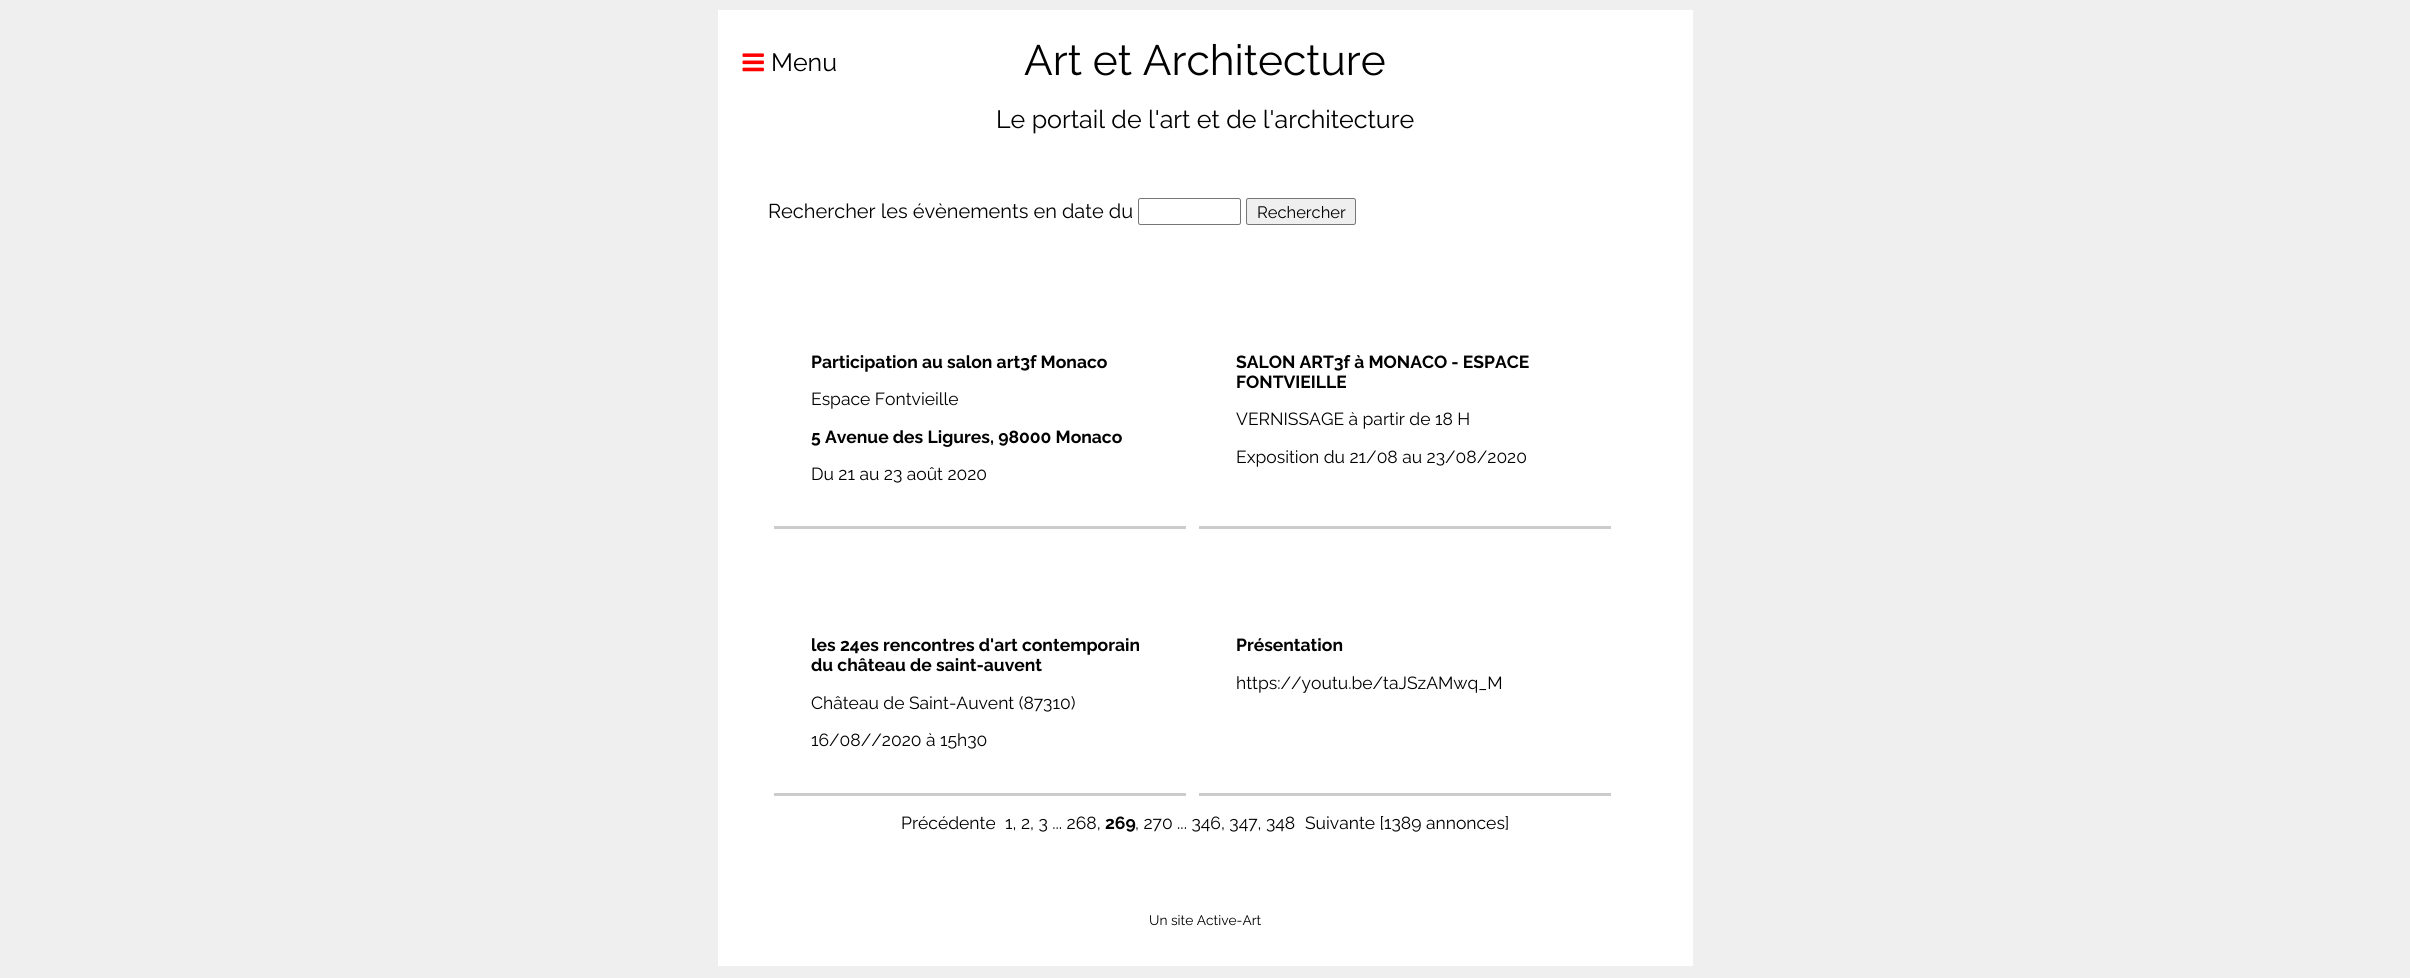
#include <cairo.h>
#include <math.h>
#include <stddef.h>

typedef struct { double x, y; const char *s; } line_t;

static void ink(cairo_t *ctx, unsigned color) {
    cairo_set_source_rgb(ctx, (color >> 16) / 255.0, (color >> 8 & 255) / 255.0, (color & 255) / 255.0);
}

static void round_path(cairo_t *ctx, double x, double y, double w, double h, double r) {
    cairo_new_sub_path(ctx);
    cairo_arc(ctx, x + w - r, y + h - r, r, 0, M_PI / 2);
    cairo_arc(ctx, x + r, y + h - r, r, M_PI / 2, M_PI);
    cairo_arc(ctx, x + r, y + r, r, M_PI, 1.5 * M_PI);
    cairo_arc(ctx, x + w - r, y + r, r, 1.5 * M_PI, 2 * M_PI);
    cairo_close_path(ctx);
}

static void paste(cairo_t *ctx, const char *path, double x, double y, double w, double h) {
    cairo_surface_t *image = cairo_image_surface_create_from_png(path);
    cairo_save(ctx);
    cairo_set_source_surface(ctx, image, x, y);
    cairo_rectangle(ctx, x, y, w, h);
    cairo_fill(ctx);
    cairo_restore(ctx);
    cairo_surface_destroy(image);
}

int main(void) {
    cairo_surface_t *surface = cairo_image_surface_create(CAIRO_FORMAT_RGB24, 2410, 978);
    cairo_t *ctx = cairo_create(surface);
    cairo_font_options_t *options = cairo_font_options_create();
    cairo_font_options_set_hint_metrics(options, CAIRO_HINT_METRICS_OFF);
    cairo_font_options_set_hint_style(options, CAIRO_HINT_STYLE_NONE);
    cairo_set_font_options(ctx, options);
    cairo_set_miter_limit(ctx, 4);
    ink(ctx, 0xEFEFEF);
    cairo_paint(ctx);
    ink(ctx, 0xFFFFFF);
    cairo_rectangle(ctx, 718, 10, 975, 956);
    cairo_fill(ctx);
    paste(ctx, "media/1.png", 742, 53, 22, 19);
    cairo_select_font_face(ctx, "Raleway", CAIRO_FONT_SLANT_NORMAL, CAIRO_FONT_WEIGHT_NORMAL);
    cairo_set_font_size(ctx, 25);
    ink(ctx, 0x000000);
    cairo_move_to(ctx, 771, 71);
    cairo_show_text(ctx, "Menu");
    cairo_set_font_size(ctx, 42.5);
    cairo_move_to(ctx, 1024, 75);
    cairo_show_text(ctx, "Art et Architecture");
    cairo_set_font_size(ctx, 25);
    cairo_move_to(ctx, 996, 128);
    cairo_show_text(ctx, "Le portail de l'art et de l'architecture");
    cairo_set_font_size(ctx, 20);
    cairo_move_to(ctx, 768, 218);
    cairo_show_text(ctx, "Rechercher les évènements en date du");
    round_path(ctx, 1138.5, 198.5, 102, 26, 2);
    ink(ctx, 0x767676);
    cairo_set_line_width(ctx, 1);
    cairo_stroke(ctx);
    ink(ctx, 0xEFEFEF);
    round_path(ctx, 1246.5, 198.5, 109, 26, 2);
    cairo_fill_preserve(ctx);
    ink(ctx, 0x767676);
    cairo_stroke(ctx);
    cairo_set_font_size(ctx, 16.5);
    ink(ctx, 0x000000);
    cairo_move_to(ctx, 1257, 218);
    cairo_show_text(ctx, "Rechercher");
    ink(ctx, 0xCCCCCC);
    cairo_rectangle(ctx, 774, 526, 412, 3);
    cairo_fill(ctx);
    cairo_select_font_face(ctx, "Raleway", CAIRO_FONT_SLANT_NORMAL, CAIRO_FONT_WEIGHT_BOLD);
    cairo_set_font_size(ctx, 17.5);
    ink(ctx, 0x000000);
    cairo_move_to(ctx, 811, 368);
    cairo_show_text(ctx, "Participation au salon art3f Monaco");
    cairo_select_font_face(ctx, "Raleway", CAIRO_FONT_SLANT_NORMAL, CAIRO_FONT_WEIGHT_NORMAL);
    cairo_move_to(ctx, 811, 405);
    cairo_show_text(ctx, "Espace Fontvieille");
    cairo_select_font_face(ctx, "Raleway", CAIRO_FONT_SLANT_NORMAL, CAIRO_FONT_WEIGHT_BOLD);
    cairo_move_to(ctx, 811, 443);
    cairo_show_text(ctx, "5 Avenue des Ligures, 98000 Monaco");
    cairo_select_font_face(ctx, "Raleway", CAIRO_FONT_SLANT_NORMAL, CAIRO_FONT_WEIGHT_NORMAL);
    cairo_move_to(ctx, 811, 480);
    cairo_show_text(ctx, "Du 21 au 23 août 2020");
    ink(ctx, 0xCCCCCC);
    cairo_rectangle(ctx, 1199, 526, 412, 3);
    cairo_fill(ctx);
    cairo_select_font_face(ctx, "Raleway", CAIRO_FONT_SLANT_NORMAL, CAIRO_FONT_WEIGHT_BOLD);
    ink(ctx, 0x000000);
    cairo_move_to(ctx, 1236, 368);
    cairo_show_text(ctx, "SALON ART3f à MONACO - ESPACE");
    cairo_move_to(ctx, 1236, 388);
    cairo_show_text(ctx, "FONTVIEILLE");
    cairo_select_font_face(ctx, "Raleway", CAIRO_FONT_SLANT_NORMAL, CAIRO_FONT_WEIGHT_NORMAL);
    cairo_move_to(ctx, 1236, 425);
    cairo_show_text(ctx, "VERNISSAGE à partir de 18 H");
    cairo_move_to(ctx, 1236, 463);
    cairo_show_text(ctx, "Exposition du 21/08 au 23/08/2020");
    ink(ctx, 0xCCCCCC);
    cairo_rectangle(ctx, 774, 793, 412, 3);
    cairo_fill(ctx);
    cairo_select_font_face(ctx, "Raleway", CAIRO_FONT_SLANT_NORMAL, CAIRO_FONT_WEIGHT_BOLD);
    ink(ctx, 0x000000);
    cairo_move_to(ctx, 811, 651);
    cairo_show_text(ctx, "les 24es rencontres d'art contemporain");
    cairo_move_to(ctx, 811, 671);
    cairo_show_text(ctx, "du château de saint-auvent");
    cairo_select_font_face(ctx, "Raleway", CAIRO_FONT_SLANT_NORMAL, CAIRO_FONT_WEIGHT_NORMAL);
    cairo_move_to(ctx, 811, 709);
    cairo_show_text(ctx, "Château de Saint-Auvent (87310)");
    cairo_move_to(ctx, 811, 746);
    cairo_show_text(ctx, "16/08//2020 à 15h30");
    ink(ctx, 0xCCCCCC);
    cairo_rectangle(ctx, 1199, 793, 412, 3);
    cairo_fill(ctx);
    cairo_select_font_face(ctx, "Raleway", CAIRO_FONT_SLANT_NORMAL, CAIRO_FONT_WEIGHT_BOLD);
    ink(ctx, 0x000000);
    cairo_move_to(ctx, 1236, 651);
    cairo_show_text(ctx, "Présentation");
    cairo_select_font_face(ctx, "Raleway", CAIRO_FONT_SLANT_NORMAL, CAIRO_FONT_WEIGHT_NORMAL);
    {
        static const line_t items[] = {
            {1236, 689, "https://youtu.be/taJSzAMwq_M"},
            {901, 829, "Précédente"},
            {1005, 829, "1, 2, 3 ... 268,"},
        };
        for (size_t i = 0; i < sizeof items / sizeof *items; i++) {
            cairo_move_to(ctx, items[i].x, items[i].y);
            cairo_show_text(ctx, items[i].s);
        }
    }
    cairo_select_font_face(ctx, "Raleway", CAIRO_FONT_SLANT_NORMAL, CAIRO_FONT_WEIGHT_BOLD);
    cairo_move_to(ctx, 1105, 829);
    cairo_show_text(ctx, "269");
    cairo_select_font_face(ctx, "Raleway", CAIRO_FONT_SLANT_NORMAL, CAIRO_FONT_WEIGHT_NORMAL);
    cairo_move_to(ctx, 1135, 829);
    cairo_show_text(ctx, ", 270 ... 346, 347, 348");
    cairo_move_to(ctx, 1305, 829);
    cairo_show_text(ctx, "Suivante [1389 annonces]");
    cairo_set_font_size(ctx, 13.75);
    cairo_move_to(ctx, 1149, 925);
    cairo_show_text(ctx, "Un site Active-Art");
    cairo_surface_write_to_png(surface, "image.png");
    cairo_font_options_destroy(options);
    cairo_destroy(ctx);
    cairo_surface_destroy(surface);
    return 0;
}
